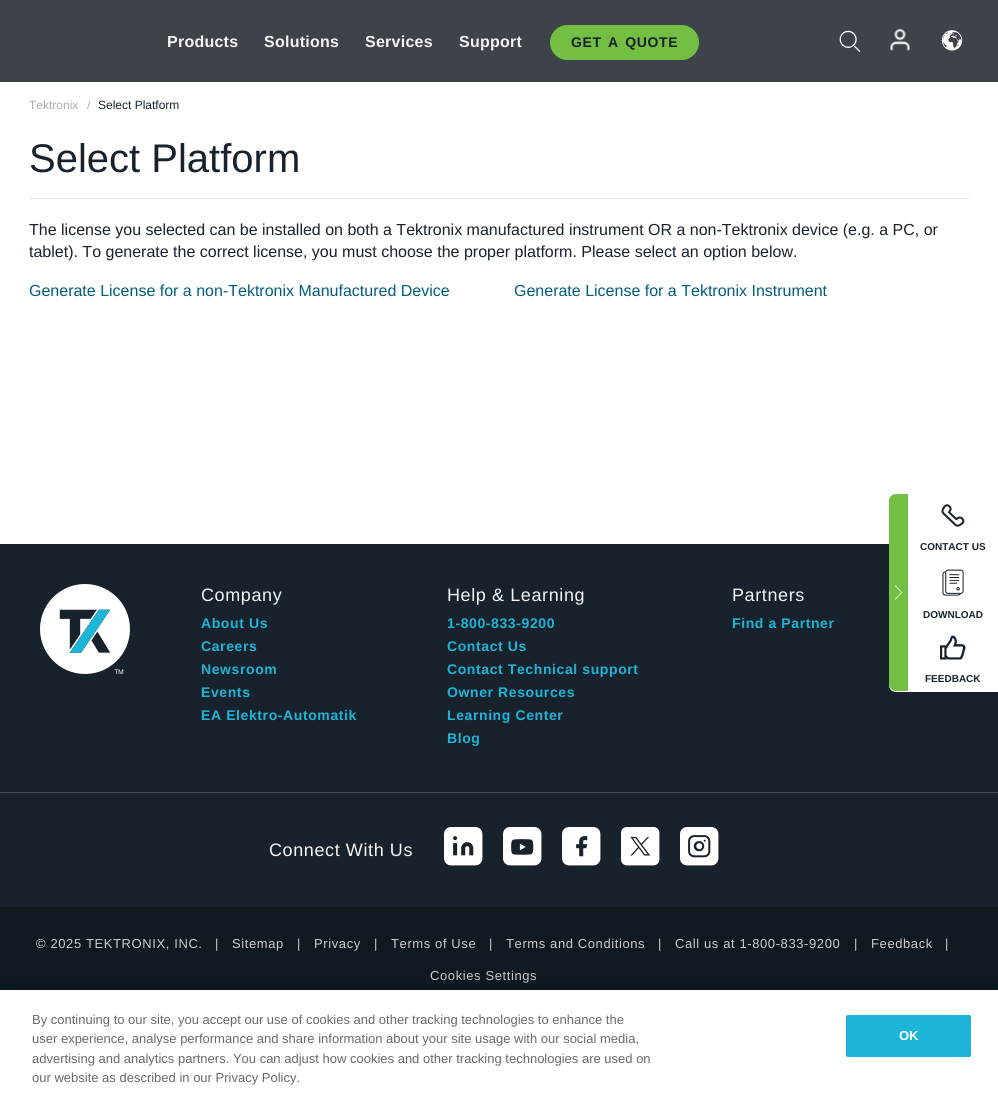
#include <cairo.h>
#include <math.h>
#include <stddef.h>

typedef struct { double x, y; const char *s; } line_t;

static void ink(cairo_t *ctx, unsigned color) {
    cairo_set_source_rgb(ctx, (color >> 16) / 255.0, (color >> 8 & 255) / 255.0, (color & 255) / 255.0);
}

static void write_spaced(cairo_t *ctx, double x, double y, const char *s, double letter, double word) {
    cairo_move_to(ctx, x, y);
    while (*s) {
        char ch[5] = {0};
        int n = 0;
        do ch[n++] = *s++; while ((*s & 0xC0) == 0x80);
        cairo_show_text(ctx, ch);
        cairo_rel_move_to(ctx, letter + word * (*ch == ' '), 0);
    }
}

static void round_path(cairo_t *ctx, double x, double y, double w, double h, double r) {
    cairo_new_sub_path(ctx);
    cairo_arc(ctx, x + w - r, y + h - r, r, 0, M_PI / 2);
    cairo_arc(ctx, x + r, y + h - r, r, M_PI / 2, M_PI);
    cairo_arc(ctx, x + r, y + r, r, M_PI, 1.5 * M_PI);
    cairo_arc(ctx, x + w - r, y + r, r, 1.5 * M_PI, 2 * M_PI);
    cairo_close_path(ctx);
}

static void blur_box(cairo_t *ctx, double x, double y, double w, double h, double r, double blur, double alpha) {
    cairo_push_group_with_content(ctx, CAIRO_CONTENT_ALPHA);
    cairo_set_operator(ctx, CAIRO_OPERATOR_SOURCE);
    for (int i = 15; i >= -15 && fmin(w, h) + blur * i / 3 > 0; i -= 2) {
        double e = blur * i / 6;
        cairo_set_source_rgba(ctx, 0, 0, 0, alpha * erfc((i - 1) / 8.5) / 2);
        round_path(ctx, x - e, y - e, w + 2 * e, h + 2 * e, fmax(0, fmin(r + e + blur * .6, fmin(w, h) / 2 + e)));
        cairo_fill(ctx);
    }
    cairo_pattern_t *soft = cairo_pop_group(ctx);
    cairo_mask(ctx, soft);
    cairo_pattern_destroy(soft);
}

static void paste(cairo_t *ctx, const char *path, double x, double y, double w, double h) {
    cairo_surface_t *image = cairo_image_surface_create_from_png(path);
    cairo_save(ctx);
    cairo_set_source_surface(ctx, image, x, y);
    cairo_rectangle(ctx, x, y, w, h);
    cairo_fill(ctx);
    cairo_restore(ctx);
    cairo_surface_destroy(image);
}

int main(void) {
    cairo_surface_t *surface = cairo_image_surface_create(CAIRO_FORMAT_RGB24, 998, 1098);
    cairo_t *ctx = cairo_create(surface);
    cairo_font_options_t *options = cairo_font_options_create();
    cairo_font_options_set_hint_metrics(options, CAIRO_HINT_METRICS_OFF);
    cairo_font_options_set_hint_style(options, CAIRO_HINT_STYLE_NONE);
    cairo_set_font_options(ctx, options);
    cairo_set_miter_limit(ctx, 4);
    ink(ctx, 0xFFFFFF);
    cairo_paint(ctx);
    ink(ctx, 0x3E434A);
    cairo_rectangle(ctx, 0, 0, 998, 82);
    cairo_fill(ctx);
    cairo_select_font_face(ctx, "Liberation Sans", CAIRO_FONT_SLANT_NORMAL, CAIRO_FONT_WEIGHT_BOLD);
    cairo_set_font_size(ctx, 16);
    ink(ctx, 0xF5F5F5);
    {
        static const line_t items[] = {
            {167, 47, "Products"},
            {264, 47, "Solutions"},
            {365, 47, "Services"},
            {459, 47, "Support"},
        };
        for (size_t i = 0; i < sizeof items / sizeof *items; i++) {
            write_spaced(ctx, items[i].x, items[i].y, items[i].s, 0.25, 0);
        }
    }
    ink(ctx, 0x73BF44);
    round_path(ctx, 550, 25, 149, 35, 17.5);
    cairo_fill(ctx);
    cairo_set_font_size(ctx, 14);
    ink(ctx, 0x17222C);
    write_spaced(ctx, 571, 47, "GET A QUOTE", 0.6, 2);
    paste(ctx, "media/1.png", 839, 30, 22, 22);
    paste(ctx, "media/2.png", 890, 29, 20, 22);
    paste(ctx, "media/3.png", 941, 30, 22, 21);
    cairo_select_font_face(ctx, "Liberation Sans", CAIRO_FONT_SLANT_NORMAL, CAIRO_FONT_WEIGHT_NORMAL);
    cairo_set_font_size(ctx, 12);
    ink(ctx, 0xABABAB);
    cairo_move_to(ctx, 29, 109);
    cairo_show_text(ctx, "Tektronix");
    cairo_move_to(ctx, 87, 109);
    cairo_show_text(ctx, "/");
    ink(ctx, 0x17222C);
    cairo_move_to(ctx, 98, 109);
    cairo_show_text(ctx, "Select Platform");
    ink(ctx, 0xE5E5E5);
    cairo_rectangle(ctx, 29, 198, 940, 1);
    cairo_fill(ctx);
    cairo_set_font_size(ctx, 40);
    ink(ctx, 0x17222C);
    cairo_move_to(ctx, 29, 172);
    cairo_show_text(ctx, "Select Platform");
    cairo_set_font_size(ctx, 16);
    cairo_move_to(ctx, 29, 235);
    cairo_show_text(ctx, "The license you selected can be installed on both a Tektronix manufactured instrument OR a non-Tektronix device (e.g. a PC, or");
    cairo_move_to(ctx, 29, 257);
    cairo_show_text(ctx, "tablet). To generate the correct license, you must choose the proper platform. Please select an option below.");
    ink(ctx, 0x035E7C);
    cairo_move_to(ctx, 29, 296);
    cairo_show_text(ctx, "Generate License for a non-Tektronix Manufactured Device");
    cairo_move_to(ctx, 514, 296);
    cairo_show_text(ctx, "Generate License for a Tektronix Instrument");
    ink(ctx, 0x17222C);
    cairo_rectangle(ctx, 0, 544, 998, 363);
    cairo_fill(ctx);
    ink(ctx, 0xFFFFFF);
    cairo_new_path(ctx);
    cairo_move_to(ctx, 896, 494);
    cairo_line_to(ctx, 998, 494);
    cairo_line_to(ctx, 998, 692);
    cairo_line_to(ctx, 896, 692);
    cairo_curve_to(ctx, 892, 692, 889, 689, 889, 685);
    cairo_line_to(ctx, 889, 501);
    cairo_curve_to(ctx, 889, 497, 892, 494, 896, 494);
    cairo_close_path(ctx);
    cairo_fill(ctx);
    ink(ctx, 0x73BF44);
    cairo_new_path(ctx);
    cairo_move_to(ctx, 896, 494);
    cairo_line_to(ctx, 908, 494);
    cairo_line_to(ctx, 908, 691);
    cairo_line_to(ctx, 896, 691);
    cairo_curve_to(ctx, 892, 691, 889, 688, 889, 684);
    cairo_line_to(ctx, 889, 501);
    cairo_curve_to(ctx, 889, 497, 892, 494, 896, 494);
    cairo_close_path(ctx);
    cairo_fill(ctx);
    paste(ctx, "media/4.png", 895, 585, 7, 15);
    paste(ctx, "media/5.png", 941, 504, 24, 23);
    cairo_select_font_face(ctx, "Liberation Sans", CAIRO_FONT_SLANT_NORMAL, CAIRO_FONT_WEIGHT_BOLD);
    cairo_set_font_size(ctx, 10);
    ink(ctx, 0x17222C);
    cairo_move_to(ctx, 920, 550);
    cairo_show_text(ctx, "CONTACT US");
    paste(ctx, "media/6.png", 942, 569, 22, 27);
    cairo_move_to(ctx, 923, 618);
    cairo_show_text(ctx, "DOWNLOAD");
    paste(ctx, "media/7.png", 940, 635, 26, 25);
    cairo_move_to(ctx, 925, 682);
    cairo_show_text(ctx, "FEEDBACK");
    paste(ctx, "media/8.png", 40, 584, 90, 90);
    cairo_select_font_face(ctx, "Liberation Sans", CAIRO_FONT_SLANT_NORMAL, CAIRO_FONT_WEIGHT_NORMAL);
    cairo_set_font_size(ctx, 18);
    ink(ctx, 0xF5F5F5);
    write_spaced(ctx, 201, 601, "Company", 0.6, 0);
    cairo_select_font_face(ctx, "Liberation Sans", CAIRO_FONT_SLANT_NORMAL, CAIRO_FONT_WEIGHT_BOLD);
    cairo_set_font_size(ctx, 14);
    ink(ctx, 0x1CB5D8);
    {
        static const line_t items[] = {
            {201, 628, "About Us"},
            {201, 651, "Careers"},
            {201, 674, "Newsroom"},
            {201, 697, "Events"},
            {201, 720, "EA Elektro-Automatik"},
        };
        for (size_t i = 0; i < sizeof items / sizeof *items; i++) {
            write_spaced(ctx, items[i].x, items[i].y, items[i].s, 0.6, 0);
        }
    }
    cairo_select_font_face(ctx, "Liberation Sans", CAIRO_FONT_SLANT_NORMAL, CAIRO_FONT_WEIGHT_NORMAL);
    cairo_set_font_size(ctx, 18);
    ink(ctx, 0xF5F5F5);
    write_spaced(ctx, 447, 601, "Help & Learning", 0.6, 0);
    cairo_select_font_face(ctx, "Liberation Sans", CAIRO_FONT_SLANT_NORMAL, CAIRO_FONT_WEIGHT_BOLD);
    cairo_set_font_size(ctx, 14);
    ink(ctx, 0x1CB5D8);
    {
        static const line_t items[] = {
            {447, 628, "1-800-833-9200"},
            {447, 651, "Contact Us"},
            {447, 674, "Contact Technical support"},
            {447, 697, "Owner Resources"},
            {447, 720, "Learning Center"},
            {447, 743, "Blog"},
        };
        for (size_t i = 0; i < sizeof items / sizeof *items; i++) {
            write_spaced(ctx, items[i].x, items[i].y, items[i].s, 0.6, 0);
        }
    }
    cairo_select_font_face(ctx, "Liberation Sans", CAIRO_FONT_SLANT_NORMAL, CAIRO_FONT_WEIGHT_NORMAL);
    cairo_set_font_size(ctx, 18);
    ink(ctx, 0xF5F5F5);
    write_spaced(ctx, 732, 601, "Partners", 0.6, 0);
    cairo_select_font_face(ctx, "Liberation Sans", CAIRO_FONT_SLANT_NORMAL, CAIRO_FONT_WEIGHT_BOLD);
    cairo_set_font_size(ctx, 14);
    ink(ctx, 0x1CB5D8);
    write_spaced(ctx, 732, 628, "Find a Partner", 0.6, 0);
    ink(ctx, 0x454E56);
    cairo_rectangle(ctx, 0, 792, 998, 1);
    cairo_fill(ctx);
    cairo_select_font_face(ctx, "Liberation Sans", CAIRO_FONT_SLANT_NORMAL, CAIRO_FONT_WEIGHT_NORMAL);
    cairo_set_font_size(ctx, 18);
    ink(ctx, 0xF5F5F5);
    write_spaced(ctx, 269, 856, "Connect With Us", 0.6, 0);
    paste(ctx, "media/9.png", 444, 827, 39, 39);
    paste(ctx, "media/10.png", 503, 827, 39, 39);
    paste(ctx, "media/11.png", 562, 827, 39, 39);
    paste(ctx, "media/12.png", 621, 827, 39, 39);
    paste(ctx, "media/13.png", 680, 827, 39, 39);
    ink(ctx, 0x101920);
    cairo_rectangle(ctx, 0, 907, 998, 83);
    cairo_fill(ctx);
    cairo_set_font_size(ctx, 13);
    ink(ctx, 0xCCCCCC);
    {
        static const line_t items[] = {
            {36, 948, "© 2025 TEKTRONIX, INC."},
            {215, 948, "|"},
            {232, 948, "Sitemap"},
            {297, 948, "|"},
            {314, 948, "Privacy"},
            {374, 948, "|"},
            {391, 948, "Terms of Use"},
            {489, 948, "|"},
            {506, 948, "Terms and Conditions"},
            {658, 948, "|"},
            {675, 948, "Call us at 1-800-833-9200"},
            {854, 948, "|"},
            {871, 948, "Feedback"},
            {945, 948, "|"},
            {430, 980, "Cookies Settings"},
        };
        for (size_t i = 0; i < sizeof items / sizeof *items; i++) {
            write_spaced(ctx, items[i].x, items[i].y, items[i].s, 0.6, 0);
        }
    }
    ink(ctx, 0x000000);
    blur_box(ctx, 0, 990, 998, 108, 0, 9, 0.2);
    ink(ctx, 0xFFFFFF);
    cairo_rectangle(ctx, 0, 990, 998, 108);
    cairo_fill(ctx);
    ink(ctx, 0x696969);
    {
        static const line_t items[] = {
            {32, 1024, "By continuing to our site, you accept our use of cookies and other tracking technologies to enhance the"},
            {32, 1043, "user experience, analyse performance and share information about your site usage with our social media,"},
            {32, 1063, "advertising and analytics partners. You can adjust how cookies and other tracking technologies are used on"},
            {32, 1082, "our website as described in our Privacy Policy."},
        };
        for (size_t i = 0; i < sizeof items / sizeof *items; i++) {
            cairo_move_to(ctx, items[i].x, items[i].y);
            cairo_show_text(ctx, items[i].s);
        }
    }
    ink(ctx, 0x1CB5D8);
    round_path(ctx, 846.5, 1015.5, 124, 41, 1.5);
    cairo_fill_preserve(ctx);
    cairo_set_line_width(ctx, 1);
    cairo_stroke(ctx);
    cairo_select_font_face(ctx, "Liberation Sans", CAIRO_FONT_SLANT_NORMAL, CAIRO_FONT_WEIGHT_BOLD);
    ink(ctx, 0xFFFFFF);
    cairo_move_to(ctx, 899, 1040);
    cairo_show_text(ctx, "OK");
    cairo_surface_write_to_png(surface, "image.png");
    cairo_font_options_destroy(options);
    cairo_destroy(ctx);
    cairo_surface_destroy(surface);
    return 0;
}
